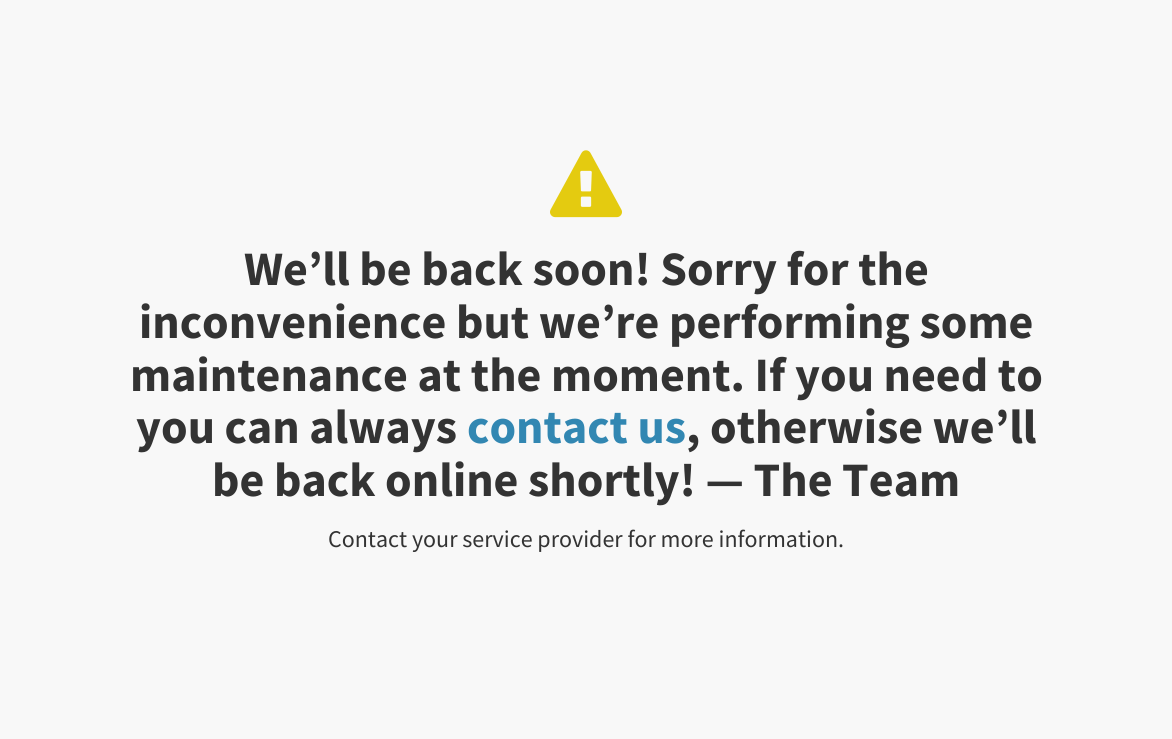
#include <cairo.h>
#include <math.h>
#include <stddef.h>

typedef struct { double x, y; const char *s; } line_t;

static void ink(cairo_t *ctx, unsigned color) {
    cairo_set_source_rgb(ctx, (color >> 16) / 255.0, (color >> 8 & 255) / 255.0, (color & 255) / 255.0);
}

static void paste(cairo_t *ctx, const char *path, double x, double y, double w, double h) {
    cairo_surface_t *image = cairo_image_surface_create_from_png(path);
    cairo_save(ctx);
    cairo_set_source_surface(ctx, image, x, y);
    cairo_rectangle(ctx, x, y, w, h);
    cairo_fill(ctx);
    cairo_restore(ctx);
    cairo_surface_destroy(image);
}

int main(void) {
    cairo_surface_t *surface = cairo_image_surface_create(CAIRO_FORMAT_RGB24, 1172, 739);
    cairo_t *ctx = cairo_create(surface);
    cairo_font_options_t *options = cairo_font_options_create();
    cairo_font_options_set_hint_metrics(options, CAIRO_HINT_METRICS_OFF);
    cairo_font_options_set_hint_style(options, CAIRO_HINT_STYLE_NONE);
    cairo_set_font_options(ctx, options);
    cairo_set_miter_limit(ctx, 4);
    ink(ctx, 0xF8F8F8);
    cairo_paint(ctx);
    paste(ctx, "media/1.png", 550, 150, 72, 68);
    cairo_select_font_face(ctx, "Source Sans Pro", CAIRO_FONT_SLANT_NORMAL, CAIRO_FONT_WEIGHT_BOLD);
    cairo_set_font_size(ctx, 48);
    ink(ctx, 0x333333);
    {
        static const line_t items[] = {
            {244, 285, "We’ll be back soon! Sorry for the"},
            {139, 338, "inconvenience but we’re performing some"},
            {130, 391, "maintenance at the moment. If you need to"},
            {136, 443, "you can always"},
        };
        for (size_t i = 0; i < sizeof items / sizeof *items; i++) {
            cairo_move_to(ctx, items[i].x, items[i].y);
            cairo_show_text(ctx, items[i].s);
        }
    }
    ink(ctx, 0x3287B2);
    cairo_move_to(ctx, 467, 443);
    cairo_show_text(ctx, "contact us");
    ink(ctx, 0x333333);
    cairo_move_to(ctx, 686, 443);
    cairo_show_text(ctx, ", otherwise we’ll");
    cairo_move_to(ctx, 212, 496);
    cairo_show_text(ctx, "be back online shortly! — The Team");
    cairo_select_font_face(ctx, "Source Sans Pro", CAIRO_FONT_SLANT_NORMAL, CAIRO_FONT_WEIGHT_NORMAL);
    cairo_set_font_size(ctx, 24);
    cairo_move_to(ctx, 328, 547);
    cairo_show_text(ctx, "Contact your service provider for more information.");
    cairo_surface_write_to_png(surface, "image.png");
    cairo_font_options_destroy(options);
    cairo_destroy(ctx);
    cairo_surface_destroy(surface);
    return 0;
}
